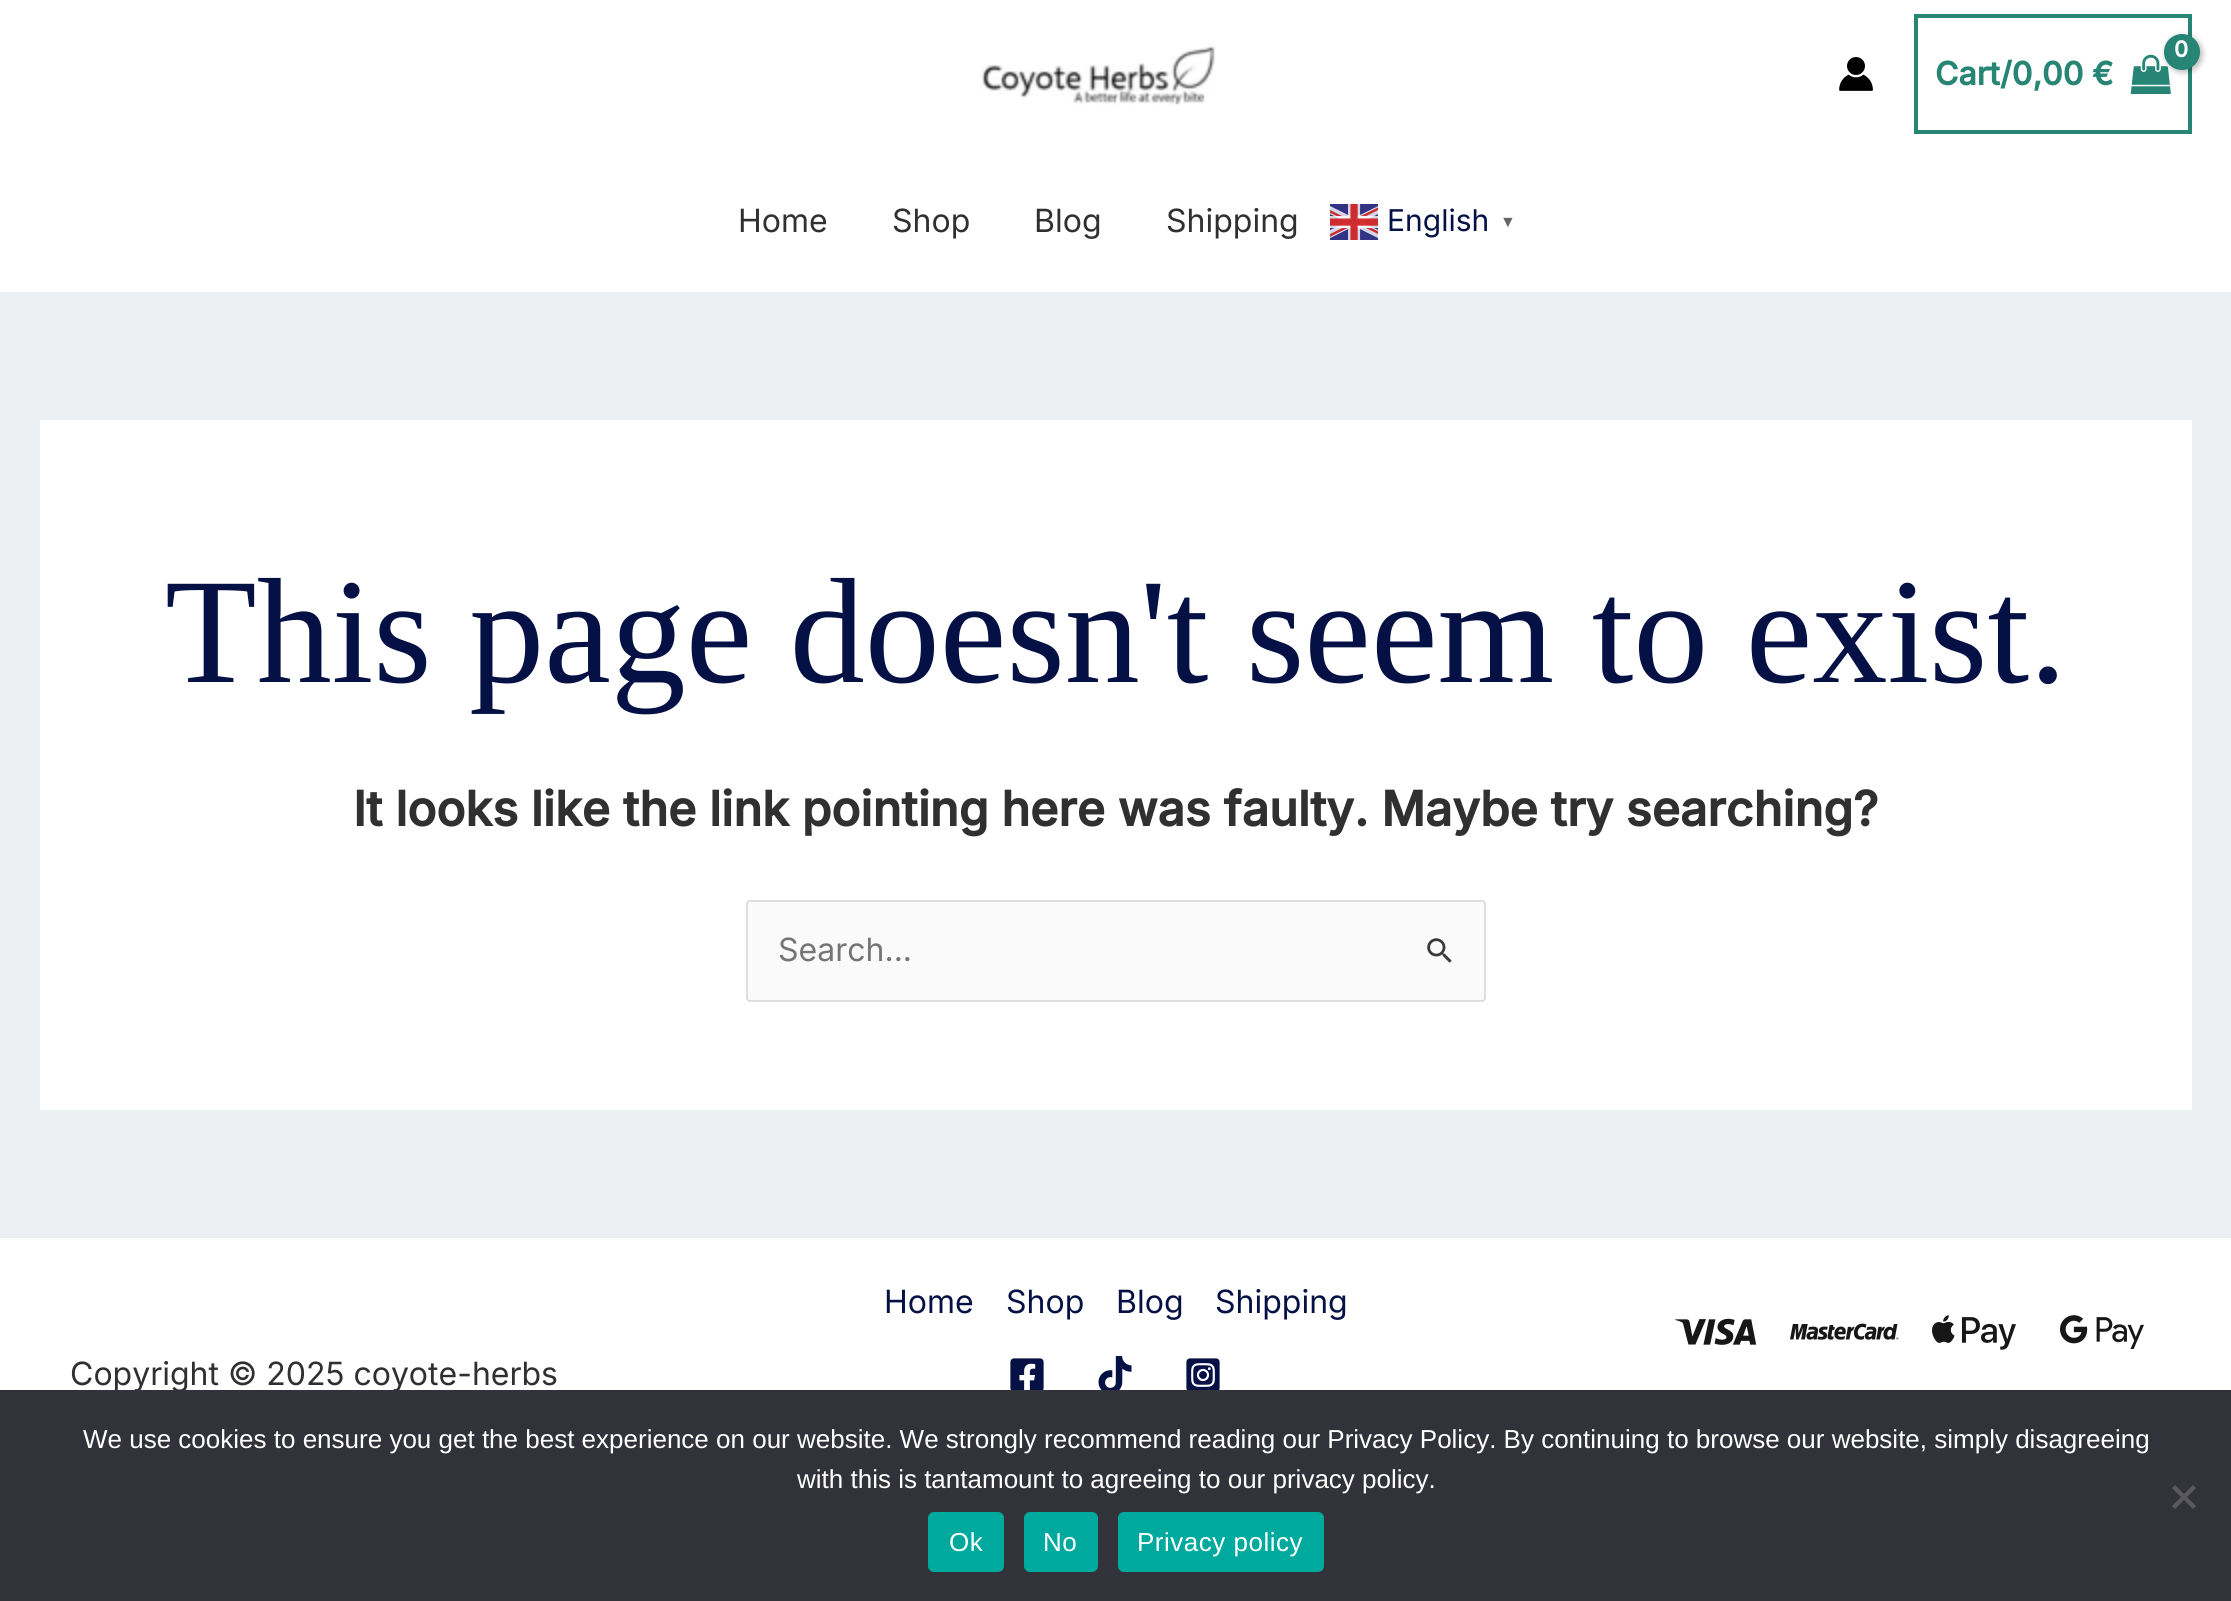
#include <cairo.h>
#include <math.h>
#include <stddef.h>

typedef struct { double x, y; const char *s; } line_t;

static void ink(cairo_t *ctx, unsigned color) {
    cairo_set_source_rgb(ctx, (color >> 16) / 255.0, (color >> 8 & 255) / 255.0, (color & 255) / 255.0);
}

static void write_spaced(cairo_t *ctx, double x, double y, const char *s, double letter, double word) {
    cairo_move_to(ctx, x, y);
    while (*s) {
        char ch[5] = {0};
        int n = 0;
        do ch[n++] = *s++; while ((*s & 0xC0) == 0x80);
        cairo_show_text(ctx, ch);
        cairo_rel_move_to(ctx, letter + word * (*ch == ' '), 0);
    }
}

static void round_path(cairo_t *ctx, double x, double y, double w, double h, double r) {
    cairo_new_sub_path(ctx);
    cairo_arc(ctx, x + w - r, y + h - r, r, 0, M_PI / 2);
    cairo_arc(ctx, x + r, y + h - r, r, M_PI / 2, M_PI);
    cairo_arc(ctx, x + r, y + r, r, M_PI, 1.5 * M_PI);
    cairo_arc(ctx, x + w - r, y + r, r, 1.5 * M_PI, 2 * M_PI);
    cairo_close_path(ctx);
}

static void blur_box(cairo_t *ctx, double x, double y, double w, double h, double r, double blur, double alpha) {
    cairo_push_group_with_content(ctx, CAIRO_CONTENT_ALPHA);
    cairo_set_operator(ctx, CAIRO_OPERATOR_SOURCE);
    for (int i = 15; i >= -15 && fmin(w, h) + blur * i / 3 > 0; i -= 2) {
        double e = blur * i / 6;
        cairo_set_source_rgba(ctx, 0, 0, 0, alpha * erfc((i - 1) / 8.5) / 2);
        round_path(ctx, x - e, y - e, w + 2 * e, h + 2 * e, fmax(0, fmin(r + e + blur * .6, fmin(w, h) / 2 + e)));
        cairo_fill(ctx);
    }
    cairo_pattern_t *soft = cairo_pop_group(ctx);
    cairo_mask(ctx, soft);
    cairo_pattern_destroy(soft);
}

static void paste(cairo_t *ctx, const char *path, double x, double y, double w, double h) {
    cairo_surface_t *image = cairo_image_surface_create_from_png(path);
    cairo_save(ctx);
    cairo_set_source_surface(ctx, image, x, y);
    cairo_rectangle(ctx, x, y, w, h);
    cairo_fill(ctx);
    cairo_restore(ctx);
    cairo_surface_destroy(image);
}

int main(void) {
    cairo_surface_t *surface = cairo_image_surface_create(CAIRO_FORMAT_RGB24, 2231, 1601);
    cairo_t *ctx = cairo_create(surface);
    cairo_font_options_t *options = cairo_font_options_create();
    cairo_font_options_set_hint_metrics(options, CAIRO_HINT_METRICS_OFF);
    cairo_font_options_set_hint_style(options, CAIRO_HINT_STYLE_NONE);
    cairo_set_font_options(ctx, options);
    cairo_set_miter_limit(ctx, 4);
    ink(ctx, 0xECF0F2);
    cairo_paint(ctx);
    ink(ctx, 0xFFFFFF);
    cairo_rectangle(ctx, 0, 0, 2231, 292);
    cairo_fill(ctx);
    paste(ctx, "media/1.png", 980, 45, 235, 60);
    paste(ctx, "media/2.png", 1839, 57, 34, 34);
    cairo_rectangle(ctx, 1916, 16, 274, 116);
    ink(ctx, 0x278575);
    cairo_set_line_width(ctx, 4);
    cairo_stroke(ctx);
    paste(ctx, "media/3.png", 2130, 54, 41, 40);
    ink(ctx, 0x000000);
    blur_box(ctx, 2166, 36, 36, 36, 18, 3, 0.3);
    ink(ctx, 0x278575);
    cairo_arc(ctx, 2182, 52, 18, 0, 2 * M_PI);
    cairo_fill(ctx);
    cairo_select_font_face(ctx, "Inter", CAIRO_FONT_SLANT_NORMAL, CAIRO_FONT_WEIGHT_BOLD);
    cairo_set_font_size(ctx, 22);
    ink(ctx, 0xFFFFFF);
    write_spaced(ctx, 2174, 57, "0", -1, 0);
    cairo_set_font_size(ctx, 32);
    ink(ctx, 0x278575);
    cairo_move_to(ctx, 1935, 85);
    cairo_show_text(ctx, "Cart/0,00 €");
    cairo_select_font_face(ctx, "Inter", CAIRO_FONT_SLANT_NORMAL, CAIRO_FONT_WEIGHT_NORMAL);
    ink(ctx, 0x303030);
    {
        static const line_t items[] = {
            {738, 232, "Home"},
            {892, 232, "Shop"},
            {1034, 232, "Blog"},
            {1166, 232, "Shipping"},
        };
        for (size_t i = 0; i < sizeof items / sizeof *items; i++) {
            cairo_move_to(ctx, items[i].x, items[i].y);
            cairo_show_text(ctx, items[i].s);
        }
    }
    paste(ctx, "media/4.png", 1330, 204, 48, 36);
    cairo_set_font_size(ctx, 30);
    ink(ctx, 0x051145);
    cairo_move_to(ctx, 1387, 231);
    cairo_show_text(ctx, "English");
    cairo_select_font_face(ctx, "Liberation Sans", CAIRO_FONT_SLANT_NORMAL, CAIRO_FONT_WEIGHT_BOLD);
    cairo_set_font_size(ctx, 16);
    ink(ctx, 0x666666);
    cairo_move_to(ctx, 1500, 227);
    cairo_show_text(ctx, "▼");
    ink(ctx, 0xFFFFFF);
    cairo_rectangle(ctx, 40, 420, 2152, 690);
    cairo_fill(ctx);
    cairo_select_font_face(ctx, "Liberation Serif", CAIRO_FONT_SLANT_NORMAL, CAIRO_FONT_WEIGHT_NORMAL);
    cairo_set_font_size(ctx, 150);
    ink(ctx, 0x051145);
    cairo_move_to(ctx, 165, 682);
    cairo_show_text(ctx, "This page doesn't seem to exist.");
    cairo_select_font_face(ctx, "Inter", CAIRO_FONT_SLANT_NORMAL, CAIRO_FONT_WEIGHT_BOLD);
    cairo_set_font_size(ctx, 48);
    ink(ctx, 0x303030);
    cairo_move_to(ctx, 353, 826);
    cairo_show_text(ctx, "It looks like the link pointing here was faulty. Maybe try searching?");
    ink(ctx, 0xFAFAFA);
    round_path(ctx, 747, 901, 738, 100, 3);
    cairo_fill_preserve(ctx);
    ink(ctx, 0xDDDDDD);
    cairo_set_line_width(ctx, 2);
    cairo_stroke(ctx);
    cairo_select_font_face(ctx, "Inter", CAIRO_FONT_SLANT_NORMAL, CAIRO_FONT_WEIGHT_NORMAL);
    cairo_set_font_size(ctx, 32);
    ink(ctx, 0x757575);
    cairo_move_to(ctx, 778, 961);
    cairo_show_text(ctx, "Search...");
    paste(ctx, "media/5.png", 1427, 938, 25, 25);
    ink(ctx, 0xFFFFFF);
    cairo_rectangle(ctx, 0, 1238, 2231, 152);
    cairo_fill(ctx);
    ink(ctx, 0x051145);
    {
        static const line_t items[] = {
            {884, 1313, "Home"},
            {1006, 1313, "Shop"},
            {1116, 1313, "Blog"},
            {1215, 1313, "Shipping"},
        };
        for (size_t i = 0; i < sizeof items / sizeof *items; i++) {
            cairo_move_to(ctx, items[i].x, items[i].y);
            cairo_show_text(ctx, items[i].s);
        }
    }
    paste(ctx, "media/6.png", 1010, 1358, 34, 32);
    paste(ctx, "media/7.png", 1098, 1356, 34, 34);
    paste(ctx, "media/8.png", 1186, 1358, 34, 32);
    paste(ctx, "media/9.png", 1675, 1318, 82, 27);
    paste(ctx, "media/10.png", 1790, 1323, 109, 17);
    paste(ctx, "media/11.png", 1932, 1315, 84, 35);
    paste(ctx, "media/12.png", 2060, 1315, 84, 34);
    ink(ctx, 0x303030);
    cairo_move_to(ctx, 70, 1385);
    cairo_show_text(ctx, "Copyright © 2025 coyote-herbs");
    ink(ctx, 0x32323A);
    cairo_rectangle(ctx, 0, 1390, 2231, 211);
    cairo_fill(ctx);
    cairo_select_font_face(ctx, "Liberation Sans", CAIRO_FONT_SLANT_NORMAL, CAIRO_FONT_WEIGHT_NORMAL);
    cairo_set_font_size(ctx, 26);
    ink(ctx, 0xFFFFFF);
    cairo_move_to(ctx, 83, 1448);
    cairo_show_text(ctx, "We use cookies to ensure you get the best experience on our website. We strongly recommend reading our Privacy Policy. By continuing to browse our website, simply disagreeing");
    cairo_move_to(ctx, 797, 1488);
    cairo_show_text(ctx, "with this is tantamount to agreeing to our privacy policy.");
    ink(ctx, 0x59595D);
    cairo_new_path(ctx);
    cairo_move_to(ctx, 2193, 1485);
    cairo_line_to(ctx, 2196, 1488);
    cairo_line_to(ctx, 2175, 1509);
    cairo_line_to(ctx, 2172, 1506);
    cairo_close_path(ctx);
    cairo_fill(ctx);
    cairo_new_path(ctx);
    cairo_move_to(ctx, 2172, 1488);
    cairo_line_to(ctx, 2175, 1485);
    cairo_line_to(ctx, 2196, 1506);
    cairo_line_to(ctx, 2193, 1509);
    cairo_close_path(ctx);
    cairo_fill(ctx);
    ink(ctx, 0x00A99D);
    round_path(ctx, 928, 1512, 76, 60, 6);
    cairo_fill(ctx);
    ink(ctx, 0xFFFFFF);
    write_spaced(ctx, 949, 1551, "Ok", 0.5, 0);
    ink(ctx, 0x00A99D);
    round_path(ctx, 1024, 1512, 74, 60, 6);
    cairo_fill(ctx);
    ink(ctx, 0xFFFFFF);
    write_spaced(ctx, 1043, 1551, "No", 0.5, 0);
    ink(ctx, 0x00A99D);
    round_path(ctx, 1118, 1512, 206, 60, 6);
    cairo_fill(ctx);
    ink(ctx, 0xFFFFFF);
    write_spaced(ctx, 1137, 1551, "Privacy policy", 0.5, 0);
    cairo_surface_write_to_png(surface, "image.png");
    cairo_font_options_destroy(options);
    cairo_destroy(ctx);
    cairo_surface_destroy(surface);
    return 0;
}
